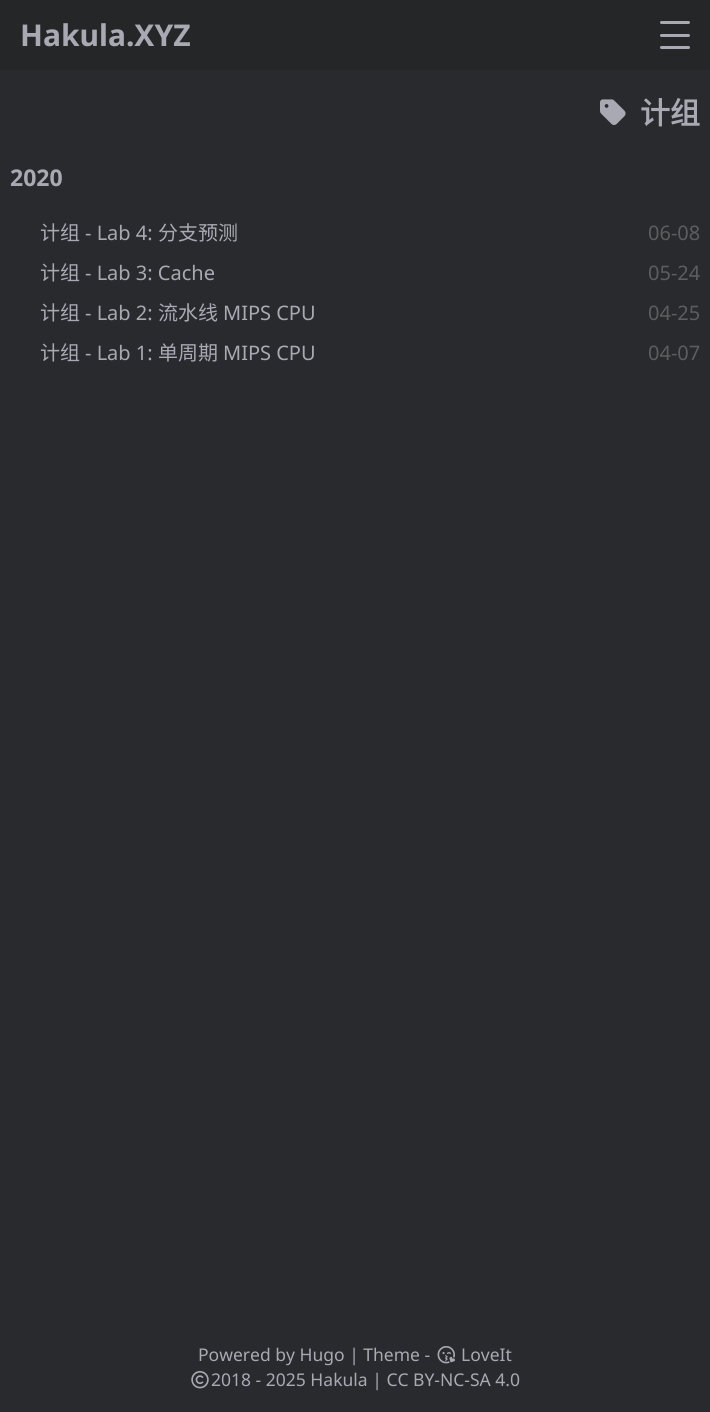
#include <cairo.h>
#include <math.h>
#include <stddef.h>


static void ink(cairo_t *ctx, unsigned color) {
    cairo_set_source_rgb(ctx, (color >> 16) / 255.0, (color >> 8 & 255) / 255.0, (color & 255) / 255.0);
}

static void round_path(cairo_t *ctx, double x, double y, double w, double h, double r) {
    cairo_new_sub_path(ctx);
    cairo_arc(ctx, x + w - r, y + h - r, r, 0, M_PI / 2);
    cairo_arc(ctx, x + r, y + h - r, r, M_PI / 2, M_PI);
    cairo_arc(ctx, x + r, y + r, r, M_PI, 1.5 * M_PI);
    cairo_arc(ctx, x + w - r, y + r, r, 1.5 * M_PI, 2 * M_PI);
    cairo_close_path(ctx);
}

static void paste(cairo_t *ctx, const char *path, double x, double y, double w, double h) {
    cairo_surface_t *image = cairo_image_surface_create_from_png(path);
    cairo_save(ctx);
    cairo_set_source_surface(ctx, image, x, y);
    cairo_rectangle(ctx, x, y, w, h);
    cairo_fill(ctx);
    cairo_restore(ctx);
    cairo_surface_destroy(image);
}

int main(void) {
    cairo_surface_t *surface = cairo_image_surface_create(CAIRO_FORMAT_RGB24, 710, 1412);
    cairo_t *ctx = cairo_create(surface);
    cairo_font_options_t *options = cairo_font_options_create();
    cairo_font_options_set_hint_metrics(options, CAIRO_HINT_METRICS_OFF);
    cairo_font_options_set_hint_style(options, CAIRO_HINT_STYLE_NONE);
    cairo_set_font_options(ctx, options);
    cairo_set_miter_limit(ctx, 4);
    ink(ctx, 0x292A2D);
    cairo_paint(ctx);
    ink(ctx, 0x252627);
    cairo_rectangle(ctx, 0, 0, 710, 70);
    cairo_fill(ctx);
    cairo_select_font_face(ctx, "Noto Sans", CAIRO_FONT_SLANT_NORMAL, CAIRO_FONT_WEIGHT_BOLD);
    cairo_set_font_size(ctx, 30);
    ink(ctx, 0xA9A9B3);
    cairo_move_to(ctx, 20, 46);
    cairo_show_text(ctx, "Hakula.XYZ");
    round_path(ctx, 660, 21, 30, 3, 1.5);
    cairo_fill(ctx);
    round_path(ctx, 660, 34, 30, 3, 1.5);
    cairo_fill(ctx);
    round_path(ctx, 660, 46, 30, 3, 1.5);
    cairo_fill(ctx);
    paste(ctx, "media/1.png", 600, 99, 26, 26);
    cairo_select_font_face(ctx, "Noto Sans CJK SC", CAIRO_FONT_SLANT_NORMAL, CAIRO_FONT_WEIGHT_BOLD);
    cairo_move_to(ctx, 640, 124);
    cairo_show_text(ctx, "计组");
    cairo_select_font_face(ctx, "Noto Sans", CAIRO_FONT_SLANT_NORMAL, CAIRO_FONT_WEIGHT_BOLD);
    cairo_set_font_size(ctx, 23);
    cairo_move_to(ctx, 10, 186);
    cairo_show_text(ctx, "2020");
    cairo_select_font_face(ctx, "Noto Sans CJK SC", CAIRO_FONT_SLANT_NORMAL, CAIRO_FONT_WEIGHT_NORMAL);
    cairo_set_font_size(ctx, 20);
    cairo_move_to(ctx, 40, 240);
    cairo_show_text(ctx, "计组");
    cairo_select_font_face(ctx, "Noto Sans", CAIRO_FONT_SLANT_NORMAL, CAIRO_FONT_WEIGHT_NORMAL);
    cairo_move_to(ctx, 85, 240);
    cairo_show_text(ctx, "- Lab 4:");
    cairo_select_font_face(ctx, "Noto Sans CJK SC", CAIRO_FONT_SLANT_NORMAL, CAIRO_FONT_WEIGHT_NORMAL);
    cairo_move_to(ctx, 158, 240);
    cairo_show_text(ctx, "分支预测");
    cairo_select_font_face(ctx, "Noto Sans", CAIRO_FONT_SLANT_NORMAL, CAIRO_FONT_WEIGHT_NORMAL);
    ink(ctx, 0x5D5D5F);
    cairo_move_to(ctx, 648, 240);
    cairo_show_text(ctx, "06-08");
    cairo_select_font_face(ctx, "Noto Sans CJK SC", CAIRO_FONT_SLANT_NORMAL, CAIRO_FONT_WEIGHT_NORMAL);
    ink(ctx, 0xA9A9B3);
    cairo_move_to(ctx, 40, 280);
    cairo_show_text(ctx, "计组");
    cairo_select_font_face(ctx, "Noto Sans", CAIRO_FONT_SLANT_NORMAL, CAIRO_FONT_WEIGHT_NORMAL);
    cairo_move_to(ctx, 85, 280);
    cairo_show_text(ctx, "- Lab 3: Cache");
    ink(ctx, 0x5D5D5F);
    cairo_move_to(ctx, 648, 280);
    cairo_show_text(ctx, "05-24");
    cairo_select_font_face(ctx, "Noto Sans CJK SC", CAIRO_FONT_SLANT_NORMAL, CAIRO_FONT_WEIGHT_NORMAL);
    ink(ctx, 0xA9A9B3);
    cairo_move_to(ctx, 40, 320);
    cairo_show_text(ctx, "计组");
    cairo_select_font_face(ctx, "Noto Sans", CAIRO_FONT_SLANT_NORMAL, CAIRO_FONT_WEIGHT_NORMAL);
    cairo_move_to(ctx, 85, 320);
    cairo_show_text(ctx, "- Lab 2:");
    cairo_select_font_face(ctx, "Noto Sans CJK SC", CAIRO_FONT_SLANT_NORMAL, CAIRO_FONT_WEIGHT_NORMAL);
    cairo_move_to(ctx, 158, 320);
    cairo_show_text(ctx, "流水线");
    cairo_select_font_face(ctx, "Noto Sans", CAIRO_FONT_SLANT_NORMAL, CAIRO_FONT_WEIGHT_NORMAL);
    cairo_move_to(ctx, 223, 320);
    cairo_show_text(ctx, "MIPS CPU");
    ink(ctx, 0x5D5D5F);
    cairo_move_to(ctx, 648, 320);
    cairo_show_text(ctx, "04-25");
    cairo_select_font_face(ctx, "Noto Sans CJK SC", CAIRO_FONT_SLANT_NORMAL, CAIRO_FONT_WEIGHT_NORMAL);
    ink(ctx, 0xA9A9B3);
    cairo_move_to(ctx, 40, 360);
    cairo_show_text(ctx, "计组");
    cairo_select_font_face(ctx, "Noto Sans", CAIRO_FONT_SLANT_NORMAL, CAIRO_FONT_WEIGHT_NORMAL);
    cairo_move_to(ctx, 85, 360);
    cairo_show_text(ctx, "- Lab 1:");
    cairo_select_font_face(ctx, "Noto Sans CJK SC", CAIRO_FONT_SLANT_NORMAL, CAIRO_FONT_WEIGHT_NORMAL);
    cairo_move_to(ctx, 158, 360);
    cairo_show_text(ctx, "单周期");
    cairo_select_font_face(ctx, "Noto Sans", CAIRO_FONT_SLANT_NORMAL, CAIRO_FONT_WEIGHT_NORMAL);
    cairo_move_to(ctx, 223, 360);
    cairo_show_text(ctx, "MIPS CPU");
    ink(ctx, 0x5D5D5F);
    cairo_move_to(ctx, 648, 360);
    cairo_show_text(ctx, "04-07");
    cairo_set_font_size(ctx, 17.5);
    ink(ctx, 0xA9A9B3);
    cairo_move_to(ctx, 198, 1361);
    cairo_show_text(ctx, "Powered by Hugo | Theme -");
    paste(ctx, "media/2.png", 437, 1346, 18, 18);
    cairo_move_to(ctx, 461, 1361);
    cairo_show_text(ctx, "LoveIt");
    paste(ctx, "media/3.png", 191, 1371, 18, 18);
    cairo_move_to(ctx, 211, 1386);
    cairo_show_text(ctx, "2018 - 2025 Hakula | CC BY-NC-SA 4.0");
    cairo_surface_write_to_png(surface, "image.png");
    cairo_font_options_destroy(options);
    cairo_destroy(ctx);
    cairo_surface_destroy(surface);
    return 0;
}
